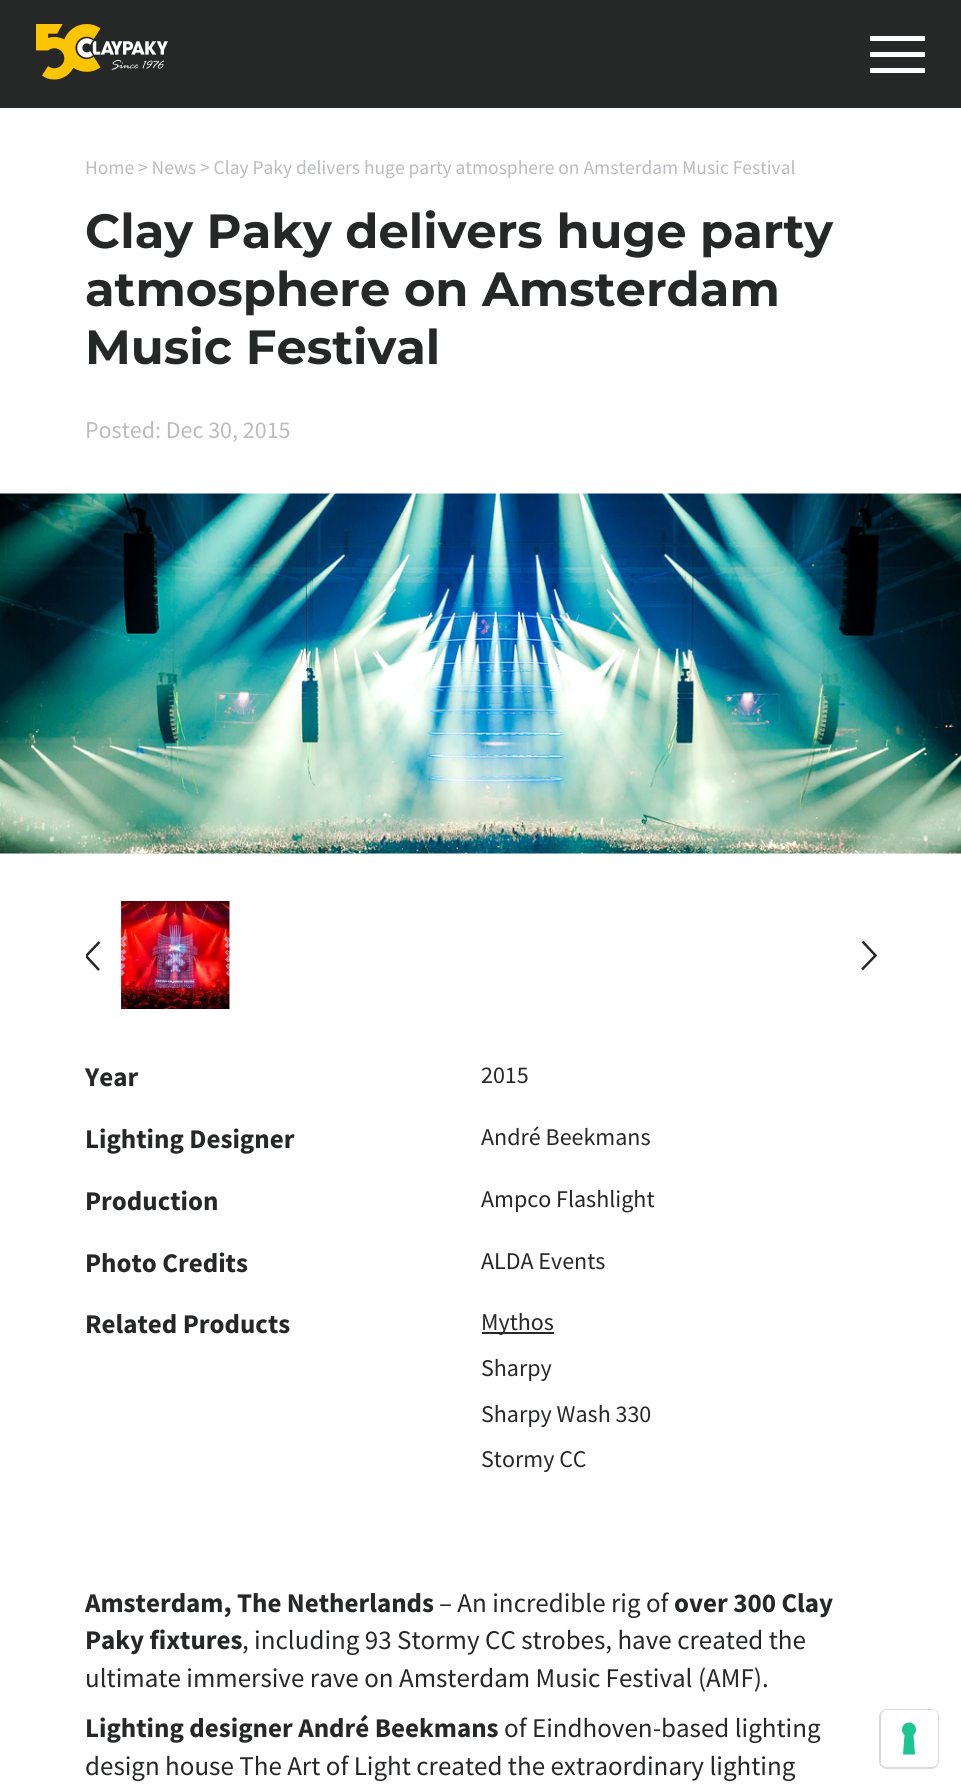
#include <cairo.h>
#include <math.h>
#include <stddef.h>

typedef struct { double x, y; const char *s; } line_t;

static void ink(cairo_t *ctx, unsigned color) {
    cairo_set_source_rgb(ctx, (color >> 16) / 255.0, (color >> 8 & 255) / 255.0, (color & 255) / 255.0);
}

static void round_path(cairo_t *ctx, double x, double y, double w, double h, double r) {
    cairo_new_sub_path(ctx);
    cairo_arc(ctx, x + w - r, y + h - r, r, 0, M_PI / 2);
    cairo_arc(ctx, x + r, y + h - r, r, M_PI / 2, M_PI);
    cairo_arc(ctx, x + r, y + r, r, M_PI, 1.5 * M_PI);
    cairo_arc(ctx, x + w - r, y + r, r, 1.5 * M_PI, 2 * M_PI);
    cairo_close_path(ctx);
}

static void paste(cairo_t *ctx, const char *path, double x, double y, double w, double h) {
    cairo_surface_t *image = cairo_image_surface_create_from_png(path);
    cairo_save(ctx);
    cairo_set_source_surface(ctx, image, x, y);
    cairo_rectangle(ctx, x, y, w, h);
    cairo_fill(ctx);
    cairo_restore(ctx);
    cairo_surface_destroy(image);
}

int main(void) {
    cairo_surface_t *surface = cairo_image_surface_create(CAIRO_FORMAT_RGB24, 961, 1790);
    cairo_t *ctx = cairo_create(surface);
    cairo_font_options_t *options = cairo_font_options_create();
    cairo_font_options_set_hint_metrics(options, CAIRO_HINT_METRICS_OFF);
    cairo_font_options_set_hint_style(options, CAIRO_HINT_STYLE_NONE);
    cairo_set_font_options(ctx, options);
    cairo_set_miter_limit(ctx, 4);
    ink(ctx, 0xFFFFFF);
    cairo_paint(ctx);
    ink(ctx, 0x262727);
    cairo_rectangle(ctx, 0, 0, 961, 108);
    cairo_fill(ctx);
    paste(ctx, "media/1.png", 36, 24, 132, 56);
    ink(ctx, 0xFFFFFF);
    cairo_new_path(ctx);
    cairo_move_to(ctx, 870, 36);
    cairo_line_to(ctx, 870, 41);
    cairo_line_to(ctx, 925, 41);
    cairo_line_to(ctx, 925, 36);
    cairo_close_path(ctx);
    cairo_move_to(ctx, 870, 57);
    cairo_line_to(ctx, 870, 52);
    cairo_line_to(ctx, 925, 52);
    cairo_line_to(ctx, 925, 57);
    cairo_close_path(ctx);
    cairo_move_to(ctx, 870, 73);
    cairo_line_to(ctx, 870, 68);
    cairo_line_to(ctx, 925, 68);
    cairo_line_to(ctx, 925, 73);
    cairo_close_path(ctx);
    cairo_fill(ctx);
    cairo_select_font_face(ctx, "Source Sans Pro", CAIRO_FONT_SLANT_NORMAL, CAIRO_FONT_WEIGHT_NORMAL);
    cairo_set_font_size(ctx, 19.5);
    ink(ctx, 0xBABCC2);
    cairo_move_to(ctx, 85, 174);
    cairo_show_text(ctx, "Home > News > Clay Paky delivers huge party atmosphere on Amsterdam Music Festival");
    cairo_select_font_face(ctx, "Montserrat Thin", CAIRO_FONT_SLANT_NORMAL, CAIRO_FONT_WEIGHT_NORMAL);
    cairo_set_font_size(ctx, 48);
    ink(ctx, 0x262727);
    {
        static const line_t items[] = {
            {85, 248, "Clay Paky delivers huge party"},
            {85, 306, "atmosphere on Amsterdam"},
            {85, 364, "Music Festival"},
        };
        for (size_t i = 0; i < sizeof items / sizeof *items; i++) {
            cairo_move_to(ctx, items[i].x, items[i].y);
            cairo_show_text(ctx, items[i].s);
        }
    }
    cairo_select_font_face(ctx, "Source Sans Pro", CAIRO_FONT_SLANT_NORMAL, CAIRO_FONT_WEIGHT_NORMAL);
    cairo_set_font_size(ctx, 24);
    ink(ctx, 0xBABCC2);
    cairo_move_to(ctx, 85, 438);
    cairo_show_text(ctx, "Posted: Dec 30, 2015");
    paste(ctx, "media/2.png", 0, 493, 961, 361);
    paste(ctx, "media/3.png", 121, 901, 109, 108);
    cairo_save(ctx);
    cairo_rectangle(ctx, 86, 941, 16, 30);
    cairo_clip(ctx);
    cairo_new_path(ctx);
    cairo_move_to(ctx, 99.5, 942);
    cairo_line_to(ctx, 86, 956);
    cairo_line_to(ctx, 99, 970);
    ink(ctx, 0x262727);
    cairo_set_line_width(ctx, 2.5);
    cairo_stroke(ctx);
    cairo_restore(ctx);
    cairo_new_path(ctx);
    cairo_move_to(ctx, 862, 969.5);
    cairo_line_to(ctx, 875.5, 955.5);
    cairo_line_to(ctx, 862.5, 941.5);
    ink(ctx, 0x262727);
    cairo_set_line_width(ctx, 2.5);
    cairo_stroke(ctx);
    cairo_select_font_face(ctx, "Source Sans Pro", CAIRO_FONT_SLANT_NORMAL, CAIRO_FONT_WEIGHT_BOLD);
    cairo_set_font_size(ctx, 27);
    cairo_move_to(ctx, 85, 1086);
    cairo_show_text(ctx, "Year");
    cairo_select_font_face(ctx, "Source Sans Pro", CAIRO_FONT_SLANT_NORMAL, CAIRO_FONT_WEIGHT_NORMAL);
    cairo_set_font_size(ctx, 24);
    cairo_move_to(ctx, 481, 1083);
    cairo_show_text(ctx, "2015");
    cairo_select_font_face(ctx, "Source Sans Pro", CAIRO_FONT_SLANT_NORMAL, CAIRO_FONT_WEIGHT_BOLD);
    cairo_set_font_size(ctx, 27);
    cairo_move_to(ctx, 85, 1148);
    cairo_show_text(ctx, "Lighting Designer");
    cairo_select_font_face(ctx, "Source Sans Pro", CAIRO_FONT_SLANT_NORMAL, CAIRO_FONT_WEIGHT_NORMAL);
    cairo_set_font_size(ctx, 24);
    cairo_move_to(ctx, 481, 1145);
    cairo_show_text(ctx, "André Beekmans");
    cairo_select_font_face(ctx, "Source Sans Pro", CAIRO_FONT_SLANT_NORMAL, CAIRO_FONT_WEIGHT_BOLD);
    cairo_set_font_size(ctx, 27);
    cairo_move_to(ctx, 85, 1210);
    cairo_show_text(ctx, "Production");
    cairo_select_font_face(ctx, "Source Sans Pro", CAIRO_FONT_SLANT_NORMAL, CAIRO_FONT_WEIGHT_NORMAL);
    cairo_set_font_size(ctx, 24);
    cairo_move_to(ctx, 481, 1207);
    cairo_show_text(ctx, "Ampco Flashlight");
    cairo_select_font_face(ctx, "Source Sans Pro", CAIRO_FONT_SLANT_NORMAL, CAIRO_FONT_WEIGHT_BOLD);
    cairo_set_font_size(ctx, 27);
    cairo_move_to(ctx, 85, 1272);
    cairo_show_text(ctx, "Photo Credits");
    cairo_select_font_face(ctx, "Source Sans Pro", CAIRO_FONT_SLANT_NORMAL, CAIRO_FONT_WEIGHT_NORMAL);
    cairo_set_font_size(ctx, 24);
    cairo_move_to(ctx, 481, 1269);
    cairo_show_text(ctx, "ALDA Events");
    cairo_select_font_face(ctx, "Source Sans Pro", CAIRO_FONT_SLANT_NORMAL, CAIRO_FONT_WEIGHT_BOLD);
    cairo_set_font_size(ctx, 27);
    cairo_move_to(ctx, 85, 1333);
    cairo_show_text(ctx, "Related Products");
    cairo_rectangle(ctx, 482, 1332, 72, 2);
    cairo_fill(ctx);
    cairo_select_font_face(ctx, "Source Sans Pro", CAIRO_FONT_SLANT_NORMAL, CAIRO_FONT_WEIGHT_NORMAL);
    cairo_set_font_size(ctx, 24);
    {
        static const line_t items[] = {
            {481, 1330, "Mythos"},
            {481, 1376, "Sharpy"},
            {481, 1422, "Sharpy Wash 330"},
            {481, 1467, "Stormy CC"},
        };
        for (size_t i = 0; i < sizeof items / sizeof *items; i++) {
            cairo_move_to(ctx, items[i].x, items[i].y);
            cairo_show_text(ctx, items[i].s);
        }
    }
    cairo_select_font_face(ctx, "Source Sans Pro", CAIRO_FONT_SLANT_NORMAL, CAIRO_FONT_WEIGHT_BOLD);
    cairo_set_font_size(ctx, 27);
    cairo_move_to(ctx, 85, 1612);
    cairo_show_text(ctx, "Amsterdam, The Netherlands");
    cairo_select_font_face(ctx, "Source Sans Pro", CAIRO_FONT_SLANT_NORMAL, CAIRO_FONT_WEIGHT_NORMAL);
    cairo_move_to(ctx, 439, 1612);
    cairo_show_text(ctx, "– An incredible rig of");
    cairo_select_font_face(ctx, "Source Sans Pro", CAIRO_FONT_SLANT_NORMAL, CAIRO_FONT_WEIGHT_BOLD);
    cairo_move_to(ctx, 674, 1612);
    cairo_show_text(ctx, "over 300 Clay");
    cairo_move_to(ctx, 85, 1649);
    cairo_show_text(ctx, "Paky fixtures");
    cairo_select_font_face(ctx, "Source Sans Pro", CAIRO_FONT_SLANT_NORMAL, CAIRO_FONT_WEIGHT_NORMAL);
    cairo_move_to(ctx, 242, 1649);
    cairo_show_text(ctx, ", including 93 Stormy CC strobes, have created the");
    cairo_move_to(ctx, 85, 1687);
    cairo_show_text(ctx, "ultimate immersive rave on Amsterdam Music Festival (AMF).");
    cairo_select_font_face(ctx, "Source Sans Pro", CAIRO_FONT_SLANT_NORMAL, CAIRO_FONT_WEIGHT_BOLD);
    cairo_move_to(ctx, 85, 1737);
    cairo_show_text(ctx, "Lighting designer André Beekmans");
    cairo_select_font_face(ctx, "Source Sans Pro", CAIRO_FONT_SLANT_NORMAL, CAIRO_FONT_WEIGHT_NORMAL);
    cairo_move_to(ctx, 504, 1737);
    cairo_show_text(ctx, "of Eindhoven-based lighting");
    cairo_move_to(ctx, 85, 1775);
    cairo_show_text(ctx, "design house The Art of Light created the extraordinary lighting");
    round_path(ctx, 880, 1710, 58, 58, 7);
    ink(ctx, 0xD9D9D9);
    cairo_set_line_width(ctx, 2);
    cairo_stroke(ctx);
    ink(ctx, 0xFFFFFF);
    round_path(ctx, 881, 1710, 57, 57, 6);
    cairo_fill(ctx);
    ink(ctx, 0x1CC691);
    cairo_set_fill_rule(ctx, CAIRO_FILL_RULE_EVEN_ODD);
    cairo_new_path(ctx);
    cairo_move_to(ctx, 909, 1722.5);
    cairo_curve_to(ctx, 915.5, 1722.5, 918.5, 1730.5, 913.5, 1735);
    cairo_line_to(ctx, 915, 1754.5);
    cairo_line_to(ctx, 903, 1754.5);
    cairo_line_to(ctx, 904.5, 1735);
    cairo_curve_to(ctx, 899.5, 1730.5, 902.5, 1722.5, 909, 1722.5);
    cairo_close_path(ctx);
    cairo_fill(ctx);
    cairo_surface_write_to_png(surface, "image.png");
    cairo_font_options_destroy(options);
    cairo_destroy(ctx);
    cairo_surface_destroy(surface);
    return 0;
}
